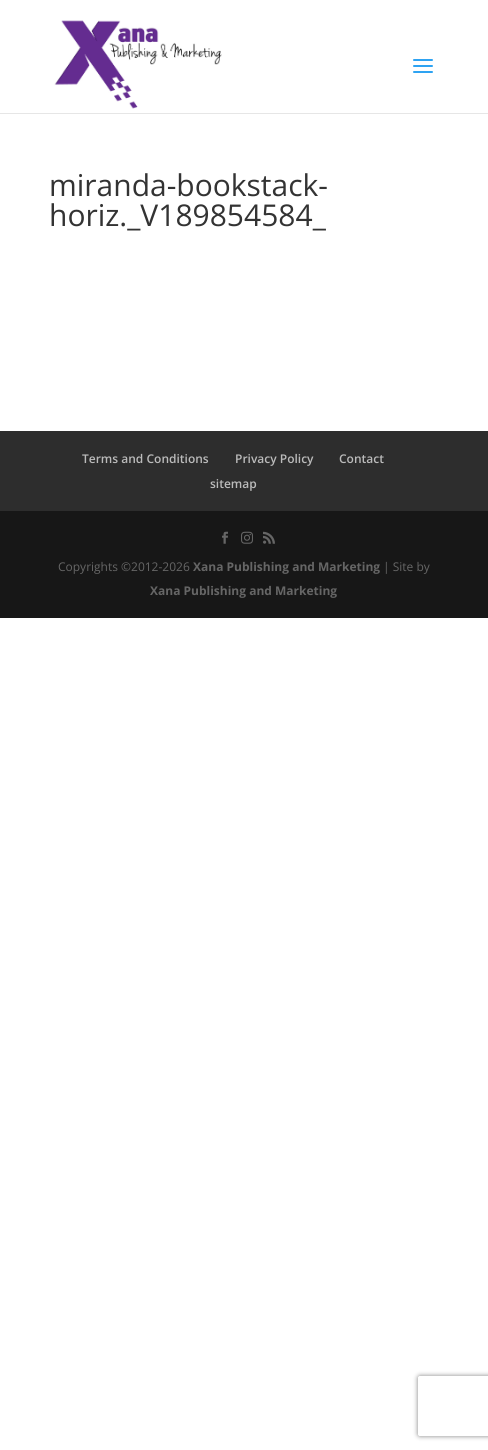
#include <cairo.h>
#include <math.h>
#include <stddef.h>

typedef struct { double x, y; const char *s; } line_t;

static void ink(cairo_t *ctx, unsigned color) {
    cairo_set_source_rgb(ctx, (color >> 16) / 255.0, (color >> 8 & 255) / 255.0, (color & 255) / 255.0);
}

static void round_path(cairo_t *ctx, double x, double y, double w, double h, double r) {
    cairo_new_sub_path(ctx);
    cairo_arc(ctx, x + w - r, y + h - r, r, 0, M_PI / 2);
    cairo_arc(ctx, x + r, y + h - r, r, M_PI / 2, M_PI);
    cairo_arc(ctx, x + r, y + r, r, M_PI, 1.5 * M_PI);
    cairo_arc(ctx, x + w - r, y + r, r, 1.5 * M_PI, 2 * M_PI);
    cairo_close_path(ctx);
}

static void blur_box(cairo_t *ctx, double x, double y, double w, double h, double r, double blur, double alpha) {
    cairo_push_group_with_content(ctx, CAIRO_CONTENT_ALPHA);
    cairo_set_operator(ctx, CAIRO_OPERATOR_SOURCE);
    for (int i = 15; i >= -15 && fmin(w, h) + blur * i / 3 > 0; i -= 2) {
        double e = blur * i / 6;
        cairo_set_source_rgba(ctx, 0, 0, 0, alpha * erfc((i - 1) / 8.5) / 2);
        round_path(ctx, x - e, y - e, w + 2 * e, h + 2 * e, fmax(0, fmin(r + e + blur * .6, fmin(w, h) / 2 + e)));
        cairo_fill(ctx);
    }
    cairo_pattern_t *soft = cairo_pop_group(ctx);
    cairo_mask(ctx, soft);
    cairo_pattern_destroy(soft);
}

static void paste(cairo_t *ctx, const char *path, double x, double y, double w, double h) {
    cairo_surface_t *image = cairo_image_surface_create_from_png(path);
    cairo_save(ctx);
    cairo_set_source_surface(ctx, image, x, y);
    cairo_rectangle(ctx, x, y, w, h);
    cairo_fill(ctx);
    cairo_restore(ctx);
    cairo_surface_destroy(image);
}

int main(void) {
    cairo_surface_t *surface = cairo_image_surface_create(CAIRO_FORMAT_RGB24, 488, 1450);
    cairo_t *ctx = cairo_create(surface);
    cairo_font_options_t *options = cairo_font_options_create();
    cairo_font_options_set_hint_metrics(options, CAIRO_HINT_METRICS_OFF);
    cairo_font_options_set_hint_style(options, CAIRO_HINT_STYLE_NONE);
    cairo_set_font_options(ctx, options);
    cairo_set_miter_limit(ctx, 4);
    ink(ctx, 0xFFFFFF);
    cairo_paint(ctx);
    ink(ctx, 0xE6E6E6);
    cairo_rectangle(ctx, 0, 113, 488, 1);
    cairo_fill(ctx);
    paste(ctx, "media/1.png", 54, 20, 168, 89);
    paste(ctx, "media/2.png", 413, 59, 20, 14);
    cairo_select_font_face(ctx, "Open Sans", CAIRO_FONT_SLANT_NORMAL, CAIRO_FONT_WEIGHT_NORMAL);
    cairo_set_font_size(ctx, 30);
    ink(ctx, 0x333333);
    cairo_move_to(ctx, 49, 196);
    cairo_show_text(ctx, "miranda-bookstack-");
    cairo_move_to(ctx, 49, 226);
    cairo_show_text(ctx, "horiz._V189854584_");
    ink(ctx, 0x2D2D2D);
    cairo_rectangle(ctx, 0, 431, 488, 80);
    cairo_fill(ctx);
    cairo_select_font_face(ctx, "Open Sans SemiBold", CAIRO_FONT_SLANT_NORMAL, CAIRO_FONT_WEIGHT_NORMAL);
    cairo_set_font_size(ctx, 12);
    ink(ctx, 0xBBBBBB);
    {
        static const line_t items[] = {
            {82, 463, "Terms and Conditions"},
            {235, 463, "Privacy Policy"},
            {339, 463, "Contact"},
            {210, 488, "sitemap"},
        };
        for (size_t i = 0; i < sizeof items / sizeof *items; i++) {
            cairo_move_to(ctx, items[i].x, items[i].y);
            cairo_show_text(ctx, items[i].s);
        }
    }
    ink(ctx, 0x171717);
    cairo_rectangle(ctx, 0, 511, 488, 107);
    cairo_fill(ctx);
    paste(ctx, "media/3.png", 222, 531, 6, 13);
    paste(ctx, "media/4.png", 241, 531, 12, 13);
    paste(ctx, "media/5.png", 263, 531, 12, 13);
    cairo_select_font_face(ctx, "Open Sans", CAIRO_FONT_SLANT_NORMAL, CAIRO_FONT_WEIGHT_NORMAL);
    ink(ctx, 0x666666);
    cairo_move_to(ctx, 58, 571);
    cairo_show_text(ctx, "Copyrights ©2012-2026");
    cairo_select_font_face(ctx, "Open Sans", CAIRO_FONT_SLANT_NORMAL, CAIRO_FONT_WEIGHT_BOLD);
    cairo_move_to(ctx, 193, 571);
    cairo_show_text(ctx, "Xana Publishing and Marketing");
    cairo_select_font_face(ctx, "Open Sans", CAIRO_FONT_SLANT_NORMAL, CAIRO_FONT_WEIGHT_NORMAL);
    cairo_move_to(ctx, 383, 571);
    cairo_show_text(ctx, "| Site by");
    cairo_select_font_face(ctx, "Open Sans", CAIRO_FONT_SLANT_NORMAL, CAIRO_FONT_WEIGHT_BOLD);
    cairo_move_to(ctx, 150, 595);
    cairo_show_text(ctx, "Xana Publishing and Marketing");
    cairo_save(ctx);
    cairo_set_fill_rule(ctx, CAIRO_FILL_RULE_EVEN_ODD);
    cairo_new_path(ctx);
    cairo_move_to(ctx, 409, 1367);
    cairo_line_to(ctx, 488, 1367);
    cairo_line_to(ctx, 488, 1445);
    cairo_line_to(ctx, 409, 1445);
    cairo_close_path(ctx);
    cairo_move_to(ctx, 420, 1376);
    cairo_line_to(ctx, 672, 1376);
    cairo_curve_to(ctx, 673, 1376, 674, 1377, 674, 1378);
    cairo_line_to(ctx, 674, 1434);
    cairo_curve_to(ctx, 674, 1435, 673, 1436, 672, 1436);
    cairo_line_to(ctx, 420, 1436);
    cairo_curve_to(ctx, 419, 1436, 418, 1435, 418, 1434);
    cairo_line_to(ctx, 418, 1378);
    cairo_curve_to(ctx, 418, 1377, 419, 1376, 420, 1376);
    cairo_close_path(ctx);
    cairo_clip(ctx);
    ink(ctx, 0x808080);
    blur_box(ctx, 418, 1376, 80, 60, 2, 2.5, 1);
    cairo_restore(ctx);
    cairo_surface_write_to_png(surface, "image.png");
    cairo_font_options_destroy(options);
    cairo_destroy(ctx);
    cairo_surface_destroy(surface);
    return 0;
}
